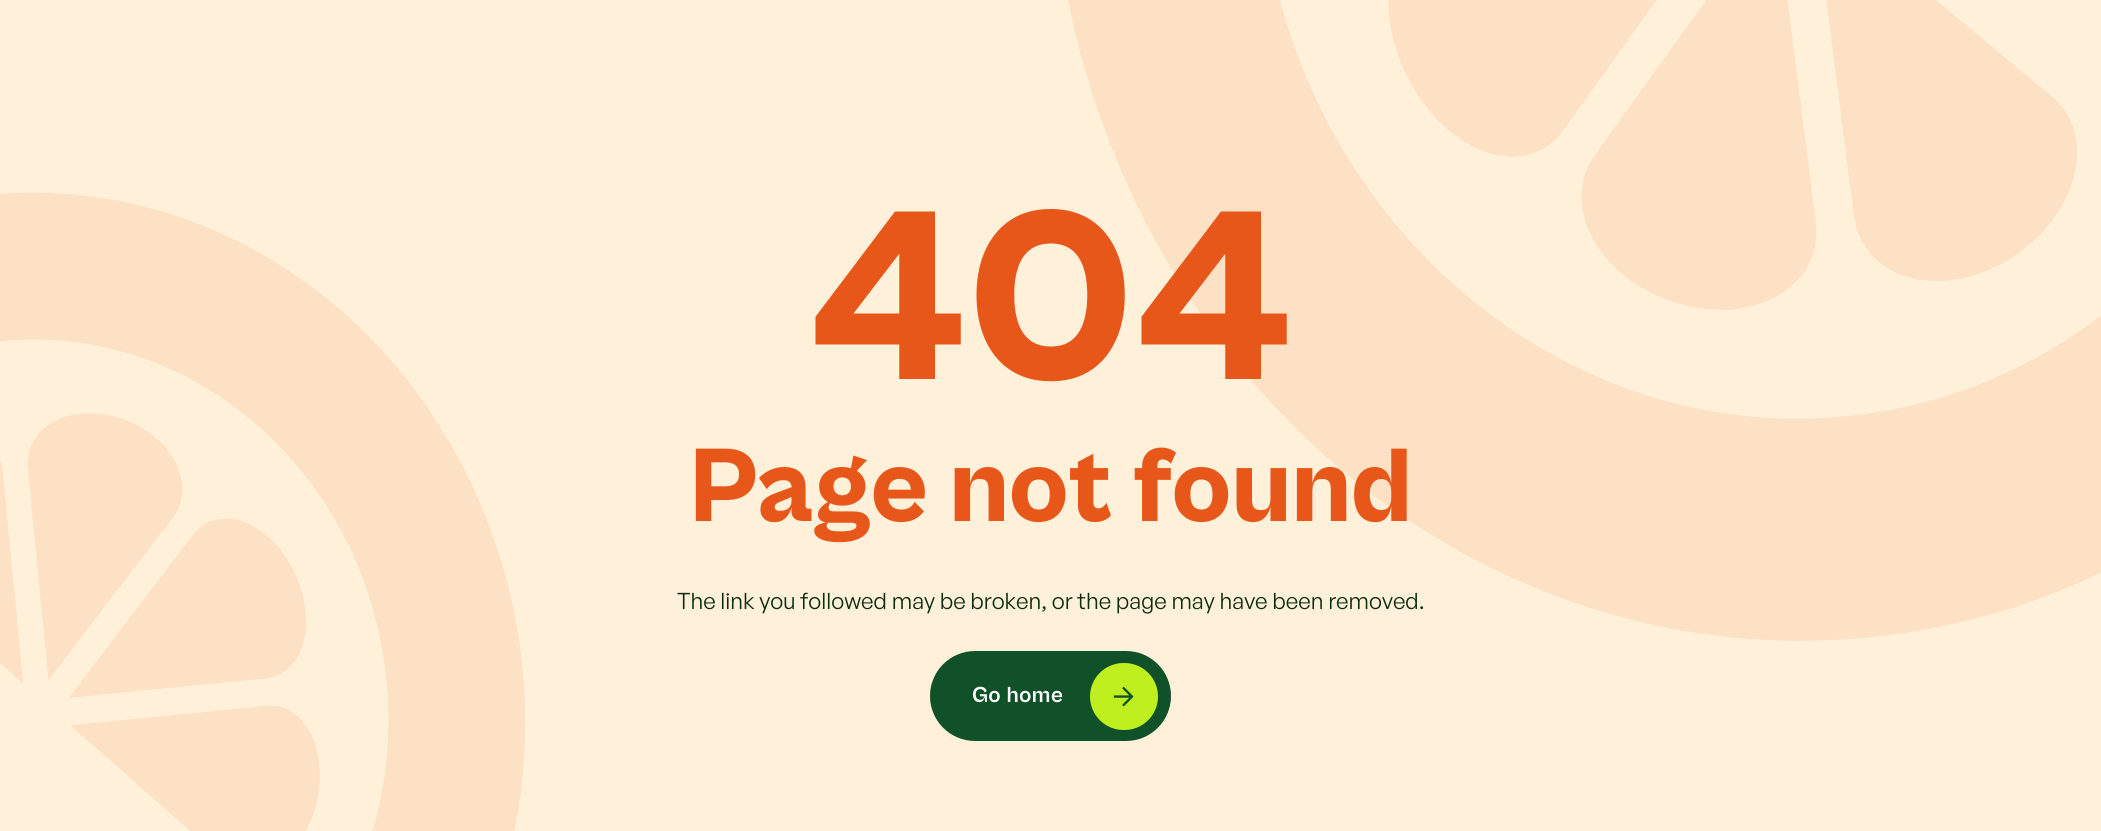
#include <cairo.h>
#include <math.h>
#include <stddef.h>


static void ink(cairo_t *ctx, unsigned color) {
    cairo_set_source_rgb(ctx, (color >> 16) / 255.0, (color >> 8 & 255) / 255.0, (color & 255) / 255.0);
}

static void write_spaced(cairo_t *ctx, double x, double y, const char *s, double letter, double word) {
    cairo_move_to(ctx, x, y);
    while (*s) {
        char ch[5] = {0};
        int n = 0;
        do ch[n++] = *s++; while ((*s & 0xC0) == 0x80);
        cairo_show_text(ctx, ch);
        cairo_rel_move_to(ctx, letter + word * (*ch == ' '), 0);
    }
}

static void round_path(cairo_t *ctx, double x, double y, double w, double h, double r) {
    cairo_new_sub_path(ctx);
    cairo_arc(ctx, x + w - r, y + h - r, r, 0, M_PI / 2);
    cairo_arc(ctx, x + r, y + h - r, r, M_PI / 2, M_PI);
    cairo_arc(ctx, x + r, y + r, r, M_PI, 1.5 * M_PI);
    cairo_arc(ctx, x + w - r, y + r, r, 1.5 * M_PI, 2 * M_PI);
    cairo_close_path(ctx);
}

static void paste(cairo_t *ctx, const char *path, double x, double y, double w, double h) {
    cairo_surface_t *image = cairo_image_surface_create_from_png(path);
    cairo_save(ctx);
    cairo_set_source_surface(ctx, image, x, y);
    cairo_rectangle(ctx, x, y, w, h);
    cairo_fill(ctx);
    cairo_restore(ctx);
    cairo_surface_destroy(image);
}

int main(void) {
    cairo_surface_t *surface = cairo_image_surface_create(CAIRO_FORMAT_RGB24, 2101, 831);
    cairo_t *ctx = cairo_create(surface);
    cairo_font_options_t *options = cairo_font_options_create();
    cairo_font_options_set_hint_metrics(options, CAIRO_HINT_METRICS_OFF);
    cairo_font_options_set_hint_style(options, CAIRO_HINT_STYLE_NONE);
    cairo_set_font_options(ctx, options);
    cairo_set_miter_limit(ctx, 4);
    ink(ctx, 0xFFF0D9);
    cairo_paint(ctx);
    paste(ctx, "media/1.png", 0, 0, 2101, 831);
    cairo_select_font_face(ctx, "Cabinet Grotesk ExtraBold", CAIRO_FONT_SLANT_NORMAL, CAIRO_FONT_WEIGHT_NORMAL);
    cairo_set_font_size(ctx, 250);
    ink(ctx, 0xE75719);
    cairo_move_to(ctx, 809, 379);
    cairo_show_text(ctx, "404");
    cairo_set_font_size(ctx, 108);
    cairo_move_to(ctx, 690, 521);
    cairo_show_text(ctx, "Page not found");
    cairo_select_font_face(ctx, "General Sans", CAIRO_FONT_SLANT_NORMAL, CAIRO_FONT_WEIGHT_NORMAL);
    cairo_set_font_size(ctx, 22.5);
    ink(ctx, 0x0B2D0E);
    cairo_move_to(ctx, 677, 609);
    cairo_show_text(ctx, "The link you followed may be broken, or the page may have been removed.");
    ink(ctx, 0x10512A);
    round_path(ctx, 930, 651, 241, 90, 45);
    cairo_fill(ctx);
    cairo_select_font_face(ctx, "Cabinet Grotesk", CAIRO_FONT_SLANT_NORMAL, CAIRO_FONT_WEIGHT_BOLD);
    ink(ctx, 0xFFFFFF);
    write_spaced(ctx, 972, 702, "Go home", 0.5, 0);
    ink(ctx, 0xBFEF1E);
    round_path(ctx, 1090, 663, 68, 67, 33.5);
    cairo_fill(ctx);
    paste(ctx, "media/2.png", 1113, 686, 21, 21);
    cairo_surface_write_to_png(surface, "image.png");
    cairo_font_options_destroy(options);
    cairo_destroy(ctx);
    cairo_surface_destroy(surface);
    return 0;
}
